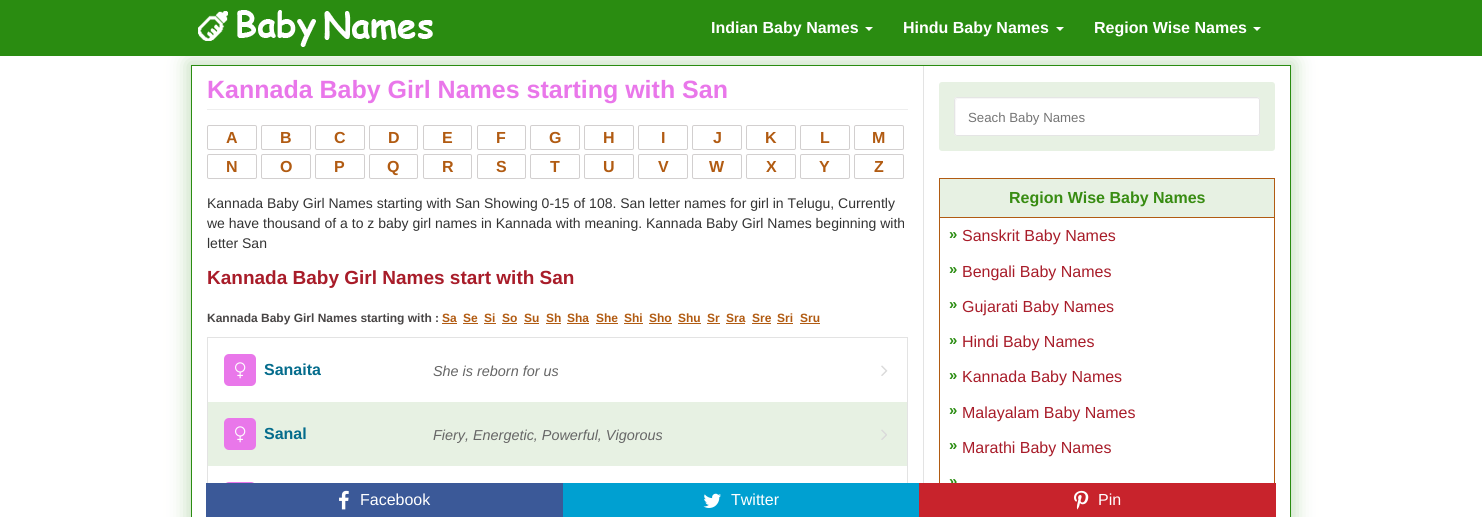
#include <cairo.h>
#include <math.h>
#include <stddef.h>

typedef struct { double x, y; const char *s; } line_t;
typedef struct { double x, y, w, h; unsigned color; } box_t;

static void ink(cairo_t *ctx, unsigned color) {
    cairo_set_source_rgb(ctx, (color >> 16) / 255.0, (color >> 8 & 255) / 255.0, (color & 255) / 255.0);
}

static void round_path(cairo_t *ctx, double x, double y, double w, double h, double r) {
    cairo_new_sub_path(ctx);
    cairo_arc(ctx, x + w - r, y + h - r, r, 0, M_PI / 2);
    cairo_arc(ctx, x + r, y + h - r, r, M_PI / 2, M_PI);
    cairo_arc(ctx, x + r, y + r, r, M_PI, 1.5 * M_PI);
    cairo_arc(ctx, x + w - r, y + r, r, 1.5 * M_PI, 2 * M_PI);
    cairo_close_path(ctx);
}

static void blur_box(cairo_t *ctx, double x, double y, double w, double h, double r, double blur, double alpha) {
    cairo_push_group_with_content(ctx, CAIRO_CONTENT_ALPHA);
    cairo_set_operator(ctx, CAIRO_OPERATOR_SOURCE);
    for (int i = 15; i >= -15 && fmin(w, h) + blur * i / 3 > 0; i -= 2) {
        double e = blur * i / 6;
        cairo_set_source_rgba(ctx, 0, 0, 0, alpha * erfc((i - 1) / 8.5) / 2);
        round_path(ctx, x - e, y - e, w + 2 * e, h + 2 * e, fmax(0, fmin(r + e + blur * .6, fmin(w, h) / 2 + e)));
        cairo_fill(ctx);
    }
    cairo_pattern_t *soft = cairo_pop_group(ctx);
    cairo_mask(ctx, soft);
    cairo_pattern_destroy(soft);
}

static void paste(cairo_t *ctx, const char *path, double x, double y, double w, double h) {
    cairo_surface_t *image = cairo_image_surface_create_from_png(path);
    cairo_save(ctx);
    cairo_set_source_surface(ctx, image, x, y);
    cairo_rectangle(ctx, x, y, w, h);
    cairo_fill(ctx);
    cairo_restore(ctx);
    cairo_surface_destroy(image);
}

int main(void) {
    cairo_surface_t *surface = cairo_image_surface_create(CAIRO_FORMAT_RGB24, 1482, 517);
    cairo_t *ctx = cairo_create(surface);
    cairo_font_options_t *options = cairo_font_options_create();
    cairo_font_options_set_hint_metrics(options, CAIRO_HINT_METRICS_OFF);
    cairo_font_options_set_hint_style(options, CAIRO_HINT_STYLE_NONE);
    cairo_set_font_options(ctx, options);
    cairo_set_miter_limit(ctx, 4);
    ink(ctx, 0xFFFFFF);
    cairo_paint(ctx);
    cairo_save(ctx);
    cairo_set_fill_rule(ctx, CAIRO_FILL_RULE_EVEN_ODD);
    cairo_new_path(ctx);
    cairo_move_to(ctx, 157, 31);
    cairo_line_to(ctx, 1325, 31);
    cairo_line_to(ctx, 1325, 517);
    cairo_line_to(ctx, 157, 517);
    cairo_close_path(ctx);
    cairo_move_to(ctx, 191, 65);
    cairo_line_to(ctx, 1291, 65);
    cairo_line_to(ctx, 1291, 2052);
    cairo_line_to(ctx, 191, 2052);
    cairo_close_path(ctx);
    cairo_clip(ctx);
    ink(ctx, 0xC3DEBC);
    blur_box(ctx, 188, 62, 1106, 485, 0, 10, 1);
    cairo_restore(ctx);
    ink(ctx, 0x2A8C11);
    cairo_rectangle(ctx, 0, 0, 1482, 56);
    cairo_fill(ctx);
    paste(ctx, "media/1.png", 198, 10, 235, 37);
    cairo_select_font_face(ctx, "Liberation Sans", CAIRO_FONT_SLANT_NORMAL, CAIRO_FONT_WEIGHT_BOLD);
    cairo_set_font_size(ctx, 16);
    ink(ctx, 0xFFFFFF);
    cairo_move_to(ctx, 711, 33);
    cairo_show_text(ctx, "Indian Baby Names");
    cairo_new_path(ctx);
    cairo_move_to(ctx, 865, 27);
    cairo_line_to(ctx, 873, 27);
    cairo_line_to(ctx, 869, 31);
    cairo_close_path(ctx);
    cairo_fill(ctx);
    cairo_move_to(ctx, 903, 33);
    cairo_show_text(ctx, "Hindu Baby Names");
    cairo_new_path(ctx);
    cairo_move_to(ctx, 1056, 27);
    cairo_line_to(ctx, 1064, 27);
    cairo_line_to(ctx, 1060, 31);
    cairo_close_path(ctx);
    cairo_fill(ctx);
    cairo_move_to(ctx, 1094, 33);
    cairo_show_text(ctx, "Region Wise Names");
    cairo_new_path(ctx);
    cairo_move_to(ctx, 1253, 27);
    cairo_line_to(ctx, 1261, 27);
    cairo_line_to(ctx, 1257, 31);
    cairo_close_path(ctx);
    cairo_fill(ctx);
    cairo_rectangle(ctx, 191.5, 65.5, 1099, 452);
    ink(ctx, 0x2A8C11);
    cairo_set_line_width(ctx, 1);
    cairo_stroke(ctx);
    ink(ctx, 0xE3E3E3);
    cairo_rectangle(ctx, 923, 66, 1, 417);
    cairo_fill(ctx);
    cairo_set_font_size(ctx, 25);
    ink(ctx, 0xE977EA);
    cairo_move_to(ctx, 207, 98);
    cairo_show_text(ctx, "Kannada Baby Girl Names starting with San");
    ink(ctx, 0xEEEEEE);
    cairo_rectangle(ctx, 207, 109, 701, 1);
    cairo_fill(ctx);
    round_path(ctx, 207.5, 125.5, 49, 24, 1.5);
    ink(ctx, 0xD2CFCF);
    cairo_stroke(ctx);
    cairo_set_font_size(ctx, 16);
    ink(ctx, 0xB15B12);
    cairo_move_to(ctx, 226, 143);
    cairo_show_text(ctx, "A");
    round_path(ctx, 261.5, 125.5, 49, 24, 1.5);
    ink(ctx, 0xD2CFCF);
    cairo_stroke(ctx);
    ink(ctx, 0xB15B12);
    cairo_move_to(ctx, 280, 143);
    cairo_show_text(ctx, "B");
    round_path(ctx, 315.5, 125.5, 49, 24, 1.5);
    ink(ctx, 0xD2CFCF);
    cairo_stroke(ctx);
    ink(ctx, 0xB15B12);
    cairo_move_to(ctx, 334, 143);
    cairo_show_text(ctx, "C");
    round_path(ctx, 369.5, 125.5, 48, 24, 1.5);
    ink(ctx, 0xD2CFCF);
    cairo_stroke(ctx);
    ink(ctx, 0xB15B12);
    cairo_move_to(ctx, 388, 143);
    cairo_show_text(ctx, "D");
    round_path(ctx, 423.5, 125.5, 48, 24, 1.5);
    ink(ctx, 0xD2CFCF);
    cairo_stroke(ctx);
    ink(ctx, 0xB15B12);
    cairo_move_to(ctx, 442, 143);
    cairo_show_text(ctx, "E");
    round_path(ctx, 477.5, 125.5, 48, 24, 1.5);
    ink(ctx, 0xD2CFCF);
    cairo_stroke(ctx);
    ink(ctx, 0xB15B12);
    cairo_move_to(ctx, 496, 143);
    cairo_show_text(ctx, "F");
    round_path(ctx, 530.5, 125.5, 49, 24, 1.5);
    ink(ctx, 0xD2CFCF);
    cairo_stroke(ctx);
    ink(ctx, 0xB15B12);
    cairo_move_to(ctx, 549, 143);
    cairo_show_text(ctx, "G");
    round_path(ctx, 584.5, 125.5, 49, 24, 1.5);
    ink(ctx, 0xD2CFCF);
    cairo_stroke(ctx);
    ink(ctx, 0xB15B12);
    cairo_move_to(ctx, 603, 143);
    cairo_show_text(ctx, "H");
    round_path(ctx, 638.5, 125.5, 49, 24, 1.5);
    ink(ctx, 0xD2CFCF);
    cairo_stroke(ctx);
    ink(ctx, 0xB15B12);
    cairo_move_to(ctx, 661, 143);
    cairo_show_text(ctx, "I");
    round_path(ctx, 692.5, 125.5, 49, 24, 1.5);
    ink(ctx, 0xD2CFCF);
    cairo_stroke(ctx);
    ink(ctx, 0xB15B12);
    cairo_move_to(ctx, 713, 143);
    cairo_show_text(ctx, "J");
    round_path(ctx, 746.5, 125.5, 49, 24, 1.5);
    ink(ctx, 0xD2CFCF);
    cairo_stroke(ctx);
    ink(ctx, 0xB15B12);
    cairo_move_to(ctx, 765, 143);
    cairo_show_text(ctx, "K");
    round_path(ctx, 800.5, 125.5, 49, 24, 1.5);
    ink(ctx, 0xD2CFCF);
    cairo_stroke(ctx);
    ink(ctx, 0xB15B12);
    cairo_move_to(ctx, 820, 143);
    cairo_show_text(ctx, "L");
    round_path(ctx, 854.5, 125.5, 49, 24, 1.5);
    ink(ctx, 0xD2CFCF);
    cairo_stroke(ctx);
    ink(ctx, 0xB15B12);
    cairo_move_to(ctx, 872, 143);
    cairo_show_text(ctx, "M");
    round_path(ctx, 207.5, 154.5, 49, 24, 1.5);
    ink(ctx, 0xD2CFCF);
    cairo_stroke(ctx);
    ink(ctx, 0xB15B12);
    cairo_move_to(ctx, 226, 172);
    cairo_show_text(ctx, "N");
    round_path(ctx, 261.5, 154.5, 49, 24, 1.5);
    ink(ctx, 0xD2CFCF);
    cairo_stroke(ctx);
    ink(ctx, 0xB15B12);
    cairo_move_to(ctx, 280, 172);
    cairo_show_text(ctx, "O");
    round_path(ctx, 315.5, 154.5, 49, 24, 1.5);
    ink(ctx, 0xD2CFCF);
    cairo_stroke(ctx);
    ink(ctx, 0xB15B12);
    cairo_move_to(ctx, 334, 172);
    cairo_show_text(ctx, "P");
    round_path(ctx, 369.5, 154.5, 48, 24, 1.5);
    ink(ctx, 0xD2CFCF);
    cairo_stroke(ctx);
    ink(ctx, 0xB15B12);
    cairo_move_to(ctx, 387, 172);
    cairo_show_text(ctx, "Q");
    round_path(ctx, 423.5, 154.5, 48, 24, 1.5);
    ink(ctx, 0xD2CFCF);
    cairo_stroke(ctx);
    ink(ctx, 0xB15B12);
    cairo_move_to(ctx, 442, 172);
    cairo_show_text(ctx, "R");
    round_path(ctx, 477.5, 154.5, 48, 24, 1.5);
    ink(ctx, 0xD2CFCF);
    cairo_stroke(ctx);
    ink(ctx, 0xB15B12);
    cairo_move_to(ctx, 496, 172);
    cairo_show_text(ctx, "S");
    round_path(ctx, 530.5, 154.5, 49, 24, 1.5);
    ink(ctx, 0xD2CFCF);
    cairo_stroke(ctx);
    ink(ctx, 0xB15B12);
    cairo_move_to(ctx, 550, 172);
    cairo_show_text(ctx, "T");
    round_path(ctx, 584.5, 154.5, 49, 24, 1.5);
    ink(ctx, 0xD2CFCF);
    cairo_stroke(ctx);
    ink(ctx, 0xB15B12);
    cairo_move_to(ctx, 603, 172);
    cairo_show_text(ctx, "U");
    round_path(ctx, 638.5, 154.5, 49, 24, 1.5);
    ink(ctx, 0xD2CFCF);
    cairo_stroke(ctx);
    ink(ctx, 0xB15B12);
    cairo_move_to(ctx, 658, 172);
    cairo_show_text(ctx, "V");
    round_path(ctx, 692.5, 154.5, 49, 24, 1.5);
    ink(ctx, 0xD2CFCF);
    cairo_stroke(ctx);
    ink(ctx, 0xB15B12);
    cairo_move_to(ctx, 709, 172);
    cairo_show_text(ctx, "W");
    round_path(ctx, 746.5, 154.5, 49, 24, 1.5);
    ink(ctx, 0xD2CFCF);
    cairo_stroke(ctx);
    ink(ctx, 0xB15B12);
    cairo_move_to(ctx, 766, 172);
    cairo_show_text(ctx, "X");
    round_path(ctx, 800.5, 154.5, 49, 24, 1.5);
    ink(ctx, 0xD2CFCF);
    cairo_stroke(ctx);
    ink(ctx, 0xB15B12);
    cairo_move_to(ctx, 819, 172);
    cairo_show_text(ctx, "Y");
    round_path(ctx, 854.5, 154.5, 49, 24, 1.5);
    ink(ctx, 0xD2CFCF);
    cairo_stroke(ctx);
    ink(ctx, 0xB15B12);
    cairo_move_to(ctx, 874, 172);
    cairo_show_text(ctx, "Z");
    cairo_select_font_face(ctx, "Liberation Sans", CAIRO_FONT_SLANT_NORMAL, CAIRO_FONT_WEIGHT_NORMAL);
    cairo_set_font_size(ctx, 14);
    ink(ctx, 0x333333);
    {
        static const line_t items[] = {
            {207, 208, "Kannada Baby Girl Names starting with San Showing 0-15 of 108. San letter names for girl in Telugu, Currently"},
            {207, 228, "we have thousand of a to z baby girl names in Kannada with meaning. Kannada Baby Girl Names beginning with"},
            {207, 248, "letter San"},
        };
        for (size_t i = 0; i < sizeof items / sizeof *items; i++) {
            cairo_move_to(ctx, items[i].x, items[i].y);
            cairo_show_text(ctx, items[i].s);
        }
    }
    cairo_select_font_face(ctx, "Liberation Sans", CAIRO_FONT_SLANT_NORMAL, CAIRO_FONT_WEIGHT_BOLD);
    cairo_set_font_size(ctx, 19);
    ink(ctx, 0xA81C29);
    cairo_move_to(ctx, 207, 284);
    cairo_show_text(ctx, "Kannada Baby Girl Names start with San");
    cairo_set_font_size(ctx, 12);
    ink(ctx, 0x484545);
    cairo_move_to(ctx, 207, 322);
    cairo_show_text(ctx, "Kannada Baby Girl Names starting with :");
    ink(ctx, 0xB15B12);
    cairo_move_to(ctx, 442, 322);
    cairo_show_text(ctx, "Sa");
    cairo_rectangle(ctx, 442, 323, 15, 1);
    cairo_fill(ctx);
    cairo_move_to(ctx, 463, 322);
    cairo_show_text(ctx, "Se");
    cairo_rectangle(ctx, 463, 323, 15, 1);
    cairo_fill(ctx);
    cairo_move_to(ctx, 484, 322);
    cairo_show_text(ctx, "Si");
    cairo_rectangle(ctx, 484, 323, 12, 1);
    cairo_fill(ctx);
    cairo_move_to(ctx, 502, 322);
    cairo_show_text(ctx, "So");
    cairo_rectangle(ctx, 502, 323, 15, 1);
    cairo_fill(ctx);
    cairo_move_to(ctx, 524, 322);
    cairo_show_text(ctx, "Su");
    cairo_rectangle(ctx, 524, 323, 15, 1);
    cairo_fill(ctx);
    cairo_move_to(ctx, 546, 322);
    cairo_show_text(ctx, "Sh");
    cairo_rectangle(ctx, 546, 323, 15, 1);
    cairo_fill(ctx);
    cairo_move_to(ctx, 567, 322);
    cairo_show_text(ctx, "Sha");
    cairo_rectangle(ctx, 567, 323, 22, 1);
    cairo_fill(ctx);
    cairo_move_to(ctx, 596, 322);
    cairo_show_text(ctx, "She");
    cairo_rectangle(ctx, 596, 323, 22, 1);
    cairo_fill(ctx);
    cairo_move_to(ctx, 624, 322);
    cairo_show_text(ctx, "Shi");
    cairo_rectangle(ctx, 624, 323, 19, 1);
    cairo_fill(ctx);
    cairo_move_to(ctx, 649, 322);
    cairo_show_text(ctx, "Sho");
    cairo_rectangle(ctx, 649, 323, 23, 1);
    cairo_fill(ctx);
    cairo_move_to(ctx, 678, 322);
    cairo_show_text(ctx, "Shu");
    cairo_rectangle(ctx, 678, 323, 23, 1);
    cairo_fill(ctx);
    cairo_move_to(ctx, 707, 322);
    cairo_show_text(ctx, "Sr");
    cairo_rectangle(ctx, 707, 323, 13, 1);
    cairo_fill(ctx);
    cairo_move_to(ctx, 726, 322);
    cairo_show_text(ctx, "Sra");
    cairo_rectangle(ctx, 726, 323, 19, 1);
    cairo_fill(ctx);
    cairo_move_to(ctx, 752, 322);
    cairo_show_text(ctx, "Sre");
    cairo_rectangle(ctx, 752, 323, 19, 1);
    cairo_fill(ctx);
    cairo_move_to(ctx, 777, 322);
    cairo_show_text(ctx, "Sri");
    cairo_rectangle(ctx, 777, 323, 16, 1);
    cairo_fill(ctx);
    cairo_move_to(ctx, 800, 322);
    cairo_show_text(ctx, "Sru");
    cairo_rectangle(ctx, 800, 323, 20, 1);
    cairo_fill(ctx);
    cairo_rectangle(ctx, 207.5, 337.5, 700, 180);
    ink(ctx, 0xE3E3E3);
    cairo_stroke(ctx);
    ink(ctx, 0xE977EA);
    round_path(ctx, 224, 354, 32, 32, 5);
    cairo_fill(ctx);
    paste(ctx, "media/2.png", 235, 362, 11, 17);
    cairo_set_font_size(ctx, 16);
    ink(ctx, 0x046C8C);
    cairo_move_to(ctx, 264, 375);
    cairo_show_text(ctx, "Sanaita");
    cairo_select_font_face(ctx, "Liberation Sans", CAIRO_FONT_SLANT_ITALIC, CAIRO_FONT_WEIGHT_NORMAL);
    cairo_set_font_size(ctx, 14.4);
    ink(ctx, 0x666666);
    cairo_move_to(ctx, 433, 376);
    cairo_show_text(ctx, "She is reborn for us");
    paste(ctx, "media/3.png", 881, 365, 7, 11);
    ink(ctx, 0xE7F1E3);
    cairo_rectangle(ctx, 208, 402, 699, 64);
    cairo_fill(ctx);
    ink(ctx, 0xE977EA);
    round_path(ctx, 224, 418, 32, 32, 5);
    cairo_fill(ctx);
    paste(ctx, "media/2.png", 235, 426, 11, 17);
    cairo_select_font_face(ctx, "Liberation Sans", CAIRO_FONT_SLANT_NORMAL, CAIRO_FONT_WEIGHT_BOLD);
    cairo_set_font_size(ctx, 16);
    ink(ctx, 0x046C8C);
    cairo_move_to(ctx, 264, 439);
    cairo_show_text(ctx, "Sanal");
    cairo_select_font_face(ctx, "Liberation Sans", CAIRO_FONT_SLANT_ITALIC, CAIRO_FONT_WEIGHT_NORMAL);
    cairo_set_font_size(ctx, 14.4);
    ink(ctx, 0x666666);
    cairo_move_to(ctx, 433, 440);
    cairo_show_text(ctx, "Fiery, Energetic, Powerful, Vigorous");
    paste(ctx, "media/4.png", 881, 429, 6, 11);
    ink(ctx, 0xE977EA);
    round_path(ctx, 224, 482, 32, 32, 5);
    cairo_fill(ctx);
    ink(ctx, 0xE7F1E3);
    round_path(ctx, 939, 82, 336, 69, 3);
    cairo_fill(ctx);
    ink(ctx, 0xFFFFFF);
    round_path(ctx, 954, 97, 306, 39, 3);
    cairo_fill(ctx);
    ink(ctx, 0xF7F7F7);
    cairo_new_path(ctx);
    cairo_move_to(ctx, 958, 99);
    cairo_line_to(ctx, 1259, 99);
    cairo_curve_to(ctx, 1258, 98, 1257, 98, 1256, 98);
    cairo_line_to(ctx, 958, 98);
    cairo_curve_to(ctx, 956, 98, 955, 99, 955, 100);
    cairo_line_to(ctx, 955, 132);
    cairo_curve_to(ctx, 955, 133, 955, 134, 956, 135);
    cairo_line_to(ctx, 956, 106);
    cairo_curve_to(ctx, 956, 106, 955, 99, 958, 99);
    cairo_close_path(ctx);
    cairo_fill(ctx);
    round_path(ctx, 954.5, 97.5, 305, 38, 2.5);
    ink(ctx, 0xE5E5E5);
    cairo_stroke(ctx);
    cairo_select_font_face(ctx, "Liberation Sans", CAIRO_FONT_SLANT_NORMAL, CAIRO_FONT_WEIGHT_NORMAL);
    cairo_set_font_size(ctx, 13.25);
    ink(ctx, 0x757575);
    cairo_move_to(ctx, 968, 122);
    cairo_show_text(ctx, "Seach Baby Names");
    {
        static const box_t items[] = {
            {940, 179, 334, 38, 0xE7F1E3},
            {939, 178, 336, 1, 0xB15B12},
            {1274, 178, 1, 39, 0xB15B12},
            {939, 178, 1, 39, 0xB15B12},
        };
        for (size_t i = 0; i < sizeof items / sizeof *items; i++) {
            ink(ctx, items[i].color);
            cairo_rectangle(ctx, items[i].x, items[i].y, items[i].w, items[i].h);
            cairo_fill(ctx);
        }
    }
    cairo_select_font_face(ctx, "Liberation Sans", CAIRO_FONT_SLANT_NORMAL, CAIRO_FONT_WEIGHT_BOLD);
    cairo_set_font_size(ctx, 16);
    ink(ctx, 0x388C12);
    cairo_move_to(ctx, 1009, 203);
    cairo_show_text(ctx, "Region Wise Baby Names");
    cairo_rectangle(ctx, 939.5, 217.5, 335, 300);
    ink(ctx, 0xB15B12);
    cairo_stroke(ctx);
    cairo_set_font_size(ctx, 15);
    ink(ctx, 0x2A8C11);
    cairo_move_to(ctx, 949, 239);
    cairo_show_text(ctx, "»");
    cairo_select_font_face(ctx, "Liberation Sans", CAIRO_FONT_SLANT_NORMAL, CAIRO_FONT_WEIGHT_NORMAL);
    cairo_set_font_size(ctx, 16);
    ink(ctx, 0xA81C29);
    cairo_move_to(ctx, 962, 241);
    cairo_show_text(ctx, "Sanskrit Baby Names");
    cairo_select_font_face(ctx, "Liberation Sans", CAIRO_FONT_SLANT_NORMAL, CAIRO_FONT_WEIGHT_BOLD);
    cairo_set_font_size(ctx, 15);
    ink(ctx, 0x2A8C11);
    cairo_move_to(ctx, 949, 274);
    cairo_show_text(ctx, "»");
    cairo_select_font_face(ctx, "Liberation Sans", CAIRO_FONT_SLANT_NORMAL, CAIRO_FONT_WEIGHT_NORMAL);
    cairo_set_font_size(ctx, 16);
    ink(ctx, 0xA81C29);
    cairo_move_to(ctx, 962, 277);
    cairo_show_text(ctx, "Bengali Baby Names");
    cairo_select_font_face(ctx, "Liberation Sans", CAIRO_FONT_SLANT_NORMAL, CAIRO_FONT_WEIGHT_BOLD);
    cairo_set_font_size(ctx, 15);
    ink(ctx, 0x2A8C11);
    cairo_move_to(ctx, 949, 309);
    cairo_show_text(ctx, "»");
    cairo_select_font_face(ctx, "Liberation Sans", CAIRO_FONT_SLANT_NORMAL, CAIRO_FONT_WEIGHT_NORMAL);
    cairo_set_font_size(ctx, 16);
    ink(ctx, 0xA81C29);
    cairo_move_to(ctx, 962, 312);
    cairo_show_text(ctx, "Gujarati Baby Names");
    cairo_select_font_face(ctx, "Liberation Sans", CAIRO_FONT_SLANT_NORMAL, CAIRO_FONT_WEIGHT_BOLD);
    cairo_set_font_size(ctx, 15);
    ink(ctx, 0x2A8C11);
    cairo_move_to(ctx, 949, 345);
    cairo_show_text(ctx, "»");
    cairo_select_font_face(ctx, "Liberation Sans", CAIRO_FONT_SLANT_NORMAL, CAIRO_FONT_WEIGHT_NORMAL);
    cairo_set_font_size(ctx, 16);
    ink(ctx, 0xA81C29);
    cairo_move_to(ctx, 962, 347);
    cairo_show_text(ctx, "Hindi Baby Names");
    cairo_select_font_face(ctx, "Liberation Sans", CAIRO_FONT_SLANT_NORMAL, CAIRO_FONT_WEIGHT_BOLD);
    cairo_set_font_size(ctx, 15);
    ink(ctx, 0x2A8C11);
    cairo_move_to(ctx, 949, 380);
    cairo_show_text(ctx, "»");
    cairo_select_font_face(ctx, "Liberation Sans", CAIRO_FONT_SLANT_NORMAL, CAIRO_FONT_WEIGHT_NORMAL);
    cairo_set_font_size(ctx, 16);
    ink(ctx, 0xA81C29);
    cairo_move_to(ctx, 962, 382);
    cairo_show_text(ctx, "Kannada Baby Names");
    cairo_select_font_face(ctx, "Liberation Sans", CAIRO_FONT_SLANT_NORMAL, CAIRO_FONT_WEIGHT_BOLD);
    cairo_set_font_size(ctx, 15);
    ink(ctx, 0x2A8C11);
    cairo_move_to(ctx, 949, 415);
    cairo_show_text(ctx, "»");
    cairo_select_font_face(ctx, "Liberation Sans", CAIRO_FONT_SLANT_NORMAL, CAIRO_FONT_WEIGHT_NORMAL);
    cairo_set_font_size(ctx, 16);
    ink(ctx, 0xA81C29);
    cairo_move_to(ctx, 962, 418);
    cairo_show_text(ctx, "Malayalam Baby Names");
    cairo_select_font_face(ctx, "Liberation Sans", CAIRO_FONT_SLANT_NORMAL, CAIRO_FONT_WEIGHT_BOLD);
    cairo_set_font_size(ctx, 15);
    ink(ctx, 0x2A8C11);
    cairo_move_to(ctx, 949, 450);
    cairo_show_text(ctx, "»");
    cairo_select_font_face(ctx, "Liberation Sans", CAIRO_FONT_SLANT_NORMAL, CAIRO_FONT_WEIGHT_NORMAL);
    cairo_set_font_size(ctx, 16);
    ink(ctx, 0xA81C29);
    cairo_move_to(ctx, 962, 453);
    cairo_show_text(ctx, "Marathi Baby Names");
    cairo_select_font_face(ctx, "Liberation Sans", CAIRO_FONT_SLANT_NORMAL, CAIRO_FONT_WEIGHT_BOLD);
    cairo_set_font_size(ctx, 15);
    ink(ctx, 0x2A8C11);
    cairo_move_to(ctx, 949, 486);
    cairo_show_text(ctx, "»");
    ink(ctx, 0x3B5998);
    cairo_rectangle(ctx, 206, 483, 357, 34);
    cairo_fill(ctx);
    paste(ctx, "media/5.png", 339, 490, 10, 20);
    cairo_select_font_face(ctx, "Liberation Sans", CAIRO_FONT_SLANT_NORMAL, CAIRO_FONT_WEIGHT_NORMAL);
    cairo_set_font_size(ctx, 16);
    ink(ctx, 0xFFFFFF);
    cairo_move_to(ctx, 360, 505);
    cairo_show_text(ctx, "Facebook");
    ink(ctx, 0x00A0D1);
    cairo_rectangle(ctx, 563, 483, 356, 34);
    cairo_fill(ctx);
    paste(ctx, "media/6.png", 703, 493, 18, 15);
    ink(ctx, 0xFFFFFF);
    cairo_move_to(ctx, 731, 505);
    cairo_show_text(ctx, "Twitter");
    ink(ctx, 0xC8232C);
    cairo_rectangle(ctx, 919, 483, 357, 34);
    cairo_fill(ctx);
    paste(ctx, "media/7.png", 1074, 490, 15, 20);
    ink(ctx, 0xFFFFFF);
    cairo_move_to(ctx, 1098, 505);
    cairo_show_text(ctx, "Pin");
    cairo_surface_write_to_png(surface, "image.png");
    cairo_font_options_destroy(options);
    cairo_destroy(ctx);
    cairo_surface_destroy(surface);
    return 0;
}
